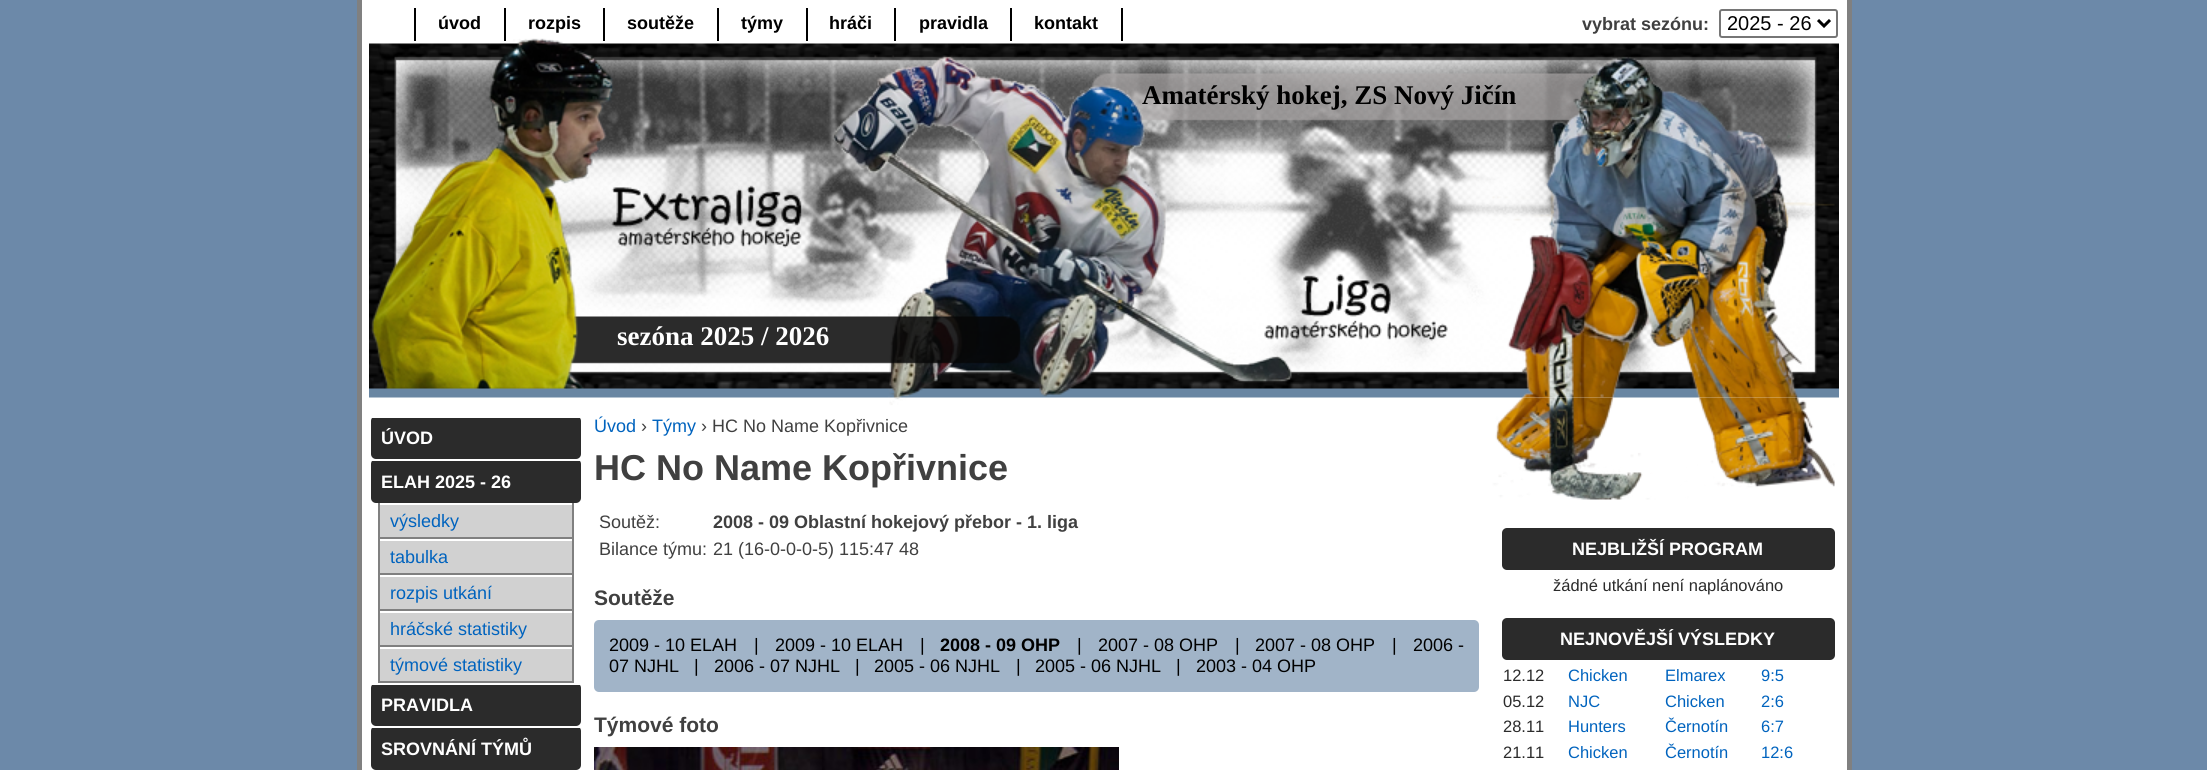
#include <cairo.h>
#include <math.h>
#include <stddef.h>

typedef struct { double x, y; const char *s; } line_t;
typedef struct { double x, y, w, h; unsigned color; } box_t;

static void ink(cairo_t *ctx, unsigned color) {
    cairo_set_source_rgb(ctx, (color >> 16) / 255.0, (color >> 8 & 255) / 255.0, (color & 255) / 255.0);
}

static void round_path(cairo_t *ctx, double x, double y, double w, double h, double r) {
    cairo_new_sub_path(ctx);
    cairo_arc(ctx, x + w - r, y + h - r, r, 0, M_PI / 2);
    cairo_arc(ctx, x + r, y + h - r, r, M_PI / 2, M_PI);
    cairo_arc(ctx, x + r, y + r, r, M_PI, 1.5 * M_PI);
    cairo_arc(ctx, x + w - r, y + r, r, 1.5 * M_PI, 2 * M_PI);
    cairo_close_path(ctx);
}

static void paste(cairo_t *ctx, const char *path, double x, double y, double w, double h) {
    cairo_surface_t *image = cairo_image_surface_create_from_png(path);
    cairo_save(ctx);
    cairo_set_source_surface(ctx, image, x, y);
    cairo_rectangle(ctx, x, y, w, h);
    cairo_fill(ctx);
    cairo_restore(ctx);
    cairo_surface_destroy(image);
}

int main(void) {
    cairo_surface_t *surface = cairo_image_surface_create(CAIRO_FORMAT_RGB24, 2207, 770);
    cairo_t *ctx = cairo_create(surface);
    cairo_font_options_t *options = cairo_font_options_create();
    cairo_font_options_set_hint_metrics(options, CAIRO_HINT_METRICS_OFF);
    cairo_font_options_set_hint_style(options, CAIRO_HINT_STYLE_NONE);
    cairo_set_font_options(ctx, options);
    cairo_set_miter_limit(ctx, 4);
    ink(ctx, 0x6C89A9);
    cairo_paint(ctx);
    {
        static const box_t items[] = {
            {362, 0, 1485, 770, 0xFFFFFF},
            {1847, 0, 5, 770, 0x808080},
            {357, 0, 5, 770, 0x808080},
        };
        for (size_t i = 0; i < sizeof items / sizeof *items; i++) {
            ink(ctx, items[i].color);
            cairo_rectangle(ctx, items[i].x, items[i].y, items[i].w, items[i].h);
            cairo_fill(ctx);
        }
    }
    paste(ctx, "media/1.png", 369, 38, 1470, 360);
    ink(ctx, 0x000000);
    cairo_rectangle(ctx, 414, 8, 2, 33);
    cairo_fill(ctx);
    cairo_select_font_face(ctx, "Liberation Sans", CAIRO_FONT_SLANT_NORMAL, CAIRO_FONT_WEIGHT_BOLD);
    cairo_set_font_size(ctx, 18);
    cairo_move_to(ctx, 438, 29);
    cairo_show_text(ctx, "úvod");
    cairo_rectangle(ctx, 504, 8, 2, 33);
    cairo_fill(ctx);
    cairo_move_to(ctx, 528, 29);
    cairo_show_text(ctx, "rozpis");
    cairo_rectangle(ctx, 603, 8, 2, 33);
    cairo_fill(ctx);
    cairo_move_to(ctx, 627, 29);
    cairo_show_text(ctx, "soutěže");
    cairo_rectangle(ctx, 717, 8, 2, 33);
    cairo_fill(ctx);
    cairo_move_to(ctx, 741, 29);
    cairo_show_text(ctx, "týmy");
    cairo_rectangle(ctx, 806, 8, 2, 33);
    cairo_fill(ctx);
    cairo_move_to(ctx, 829, 29);
    cairo_show_text(ctx, "hráči");
    cairo_rectangle(ctx, 894, 8, 2, 33);
    cairo_fill(ctx);
    cairo_move_to(ctx, 919, 29);
    cairo_show_text(ctx, "pravidla");
    cairo_rectangle(ctx, 1121, 8, 2, 33);
    cairo_fill(ctx);
    cairo_rectangle(ctx, 1010, 8, 2, 33);
    cairo_fill(ctx);
    cairo_move_to(ctx, 1034, 29);
    cairo_show_text(ctx, "kontakt");
    ink(ctx, 0x404040);
    cairo_move_to(ctx, 1582, 30);
    cairo_show_text(ctx, "vybrat sezónu:");
    round_path(ctx, 1720, 10, 117, 27, 2);
    ink(ctx, 0x767676);
    cairo_stroke(ctx);
    cairo_new_path(ctx);
    cairo_move_to(ctx, 1818, 20);
    cairo_line_to(ctx, 1824, 26);
    cairo_line_to(ctx, 1830, 20);
    ink(ctx, 0x000000);
    cairo_set_line_width(ctx, 3);
    cairo_stroke(ctx);
    cairo_select_font_face(ctx, "Liberation Sans", CAIRO_FONT_SLANT_NORMAL, CAIRO_FONT_WEIGHT_NORMAL);
    cairo_set_font_size(ctx, 20);
    cairo_move_to(ctx, 1727, 30);
    cairo_show_text(ctx, "2025 - 26");
    cairo_select_font_face(ctx, "Liberation Serif", CAIRO_FONT_SLANT_NORMAL, CAIRO_FONT_WEIGHT_BOLD);
    cairo_set_font_size(ctx, 27);
    cairo_move_to(ctx, 1142, 104);
    cairo_show_text(ctx, "Amatérský hokej, ZS Nový Jičín");
    ink(ctx, 0xFFFFFF);
    cairo_move_to(ctx, 617, 345);
    cairo_show_text(ctx, "sezóna 2025 / 2026");
    paste(ctx, "media/2.png", 889, 397, 946, 103);
    ink(ctx, 0x2B2B2B);
    round_path(ctx, 371, 416, 210, 43, 5);
    cairo_fill(ctx);
    ink(ctx, 0xFFFFFF);
    cairo_rectangle(ctx, 371, 416, 210, 2);
    cairo_fill(ctx);
    cairo_select_font_face(ctx, "Liberation Sans", CAIRO_FONT_SLANT_NORMAL, CAIRO_FONT_WEIGHT_BOLD);
    cairo_set_font_size(ctx, 18);
    cairo_move_to(ctx, 381, 444);
    cairo_show_text(ctx, "ÚVOD");
    ink(ctx, 0x2B2B2B);
    round_path(ctx, 371, 459, 210, 44, 5);
    cairo_fill(ctx);
    ink(ctx, 0xFFFFFF);
    cairo_rectangle(ctx, 371, 459, 210, 2);
    cairo_fill(ctx);
    cairo_move_to(ctx, 381, 488);
    cairo_show_text(ctx, "ELAH 2025 - 26");
    {
        static const box_t items[] = {
            {380, 505, 192, 32, 0xD1D1D1},
            {572, 503, 2, 180, 0x808080},
            {378, 537, 195, 2, 0x808080},
            {378, 503, 2, 36, 0x808080},
        };
        for (size_t i = 0; i < sizeof items / sizeof *items; i++) {
            ink(ctx, items[i].color);
            cairo_rectangle(ctx, items[i].x, items[i].y, items[i].w, items[i].h);
            cairo_fill(ctx);
        }
    }
    cairo_select_font_face(ctx, "Liberation Sans", CAIRO_FONT_SLANT_NORMAL, CAIRO_FONT_WEIGHT_NORMAL);
    ink(ctx, 0x0063BE);
    cairo_move_to(ctx, 390, 527);
    cairo_show_text(ctx, "výsledky");
    {
        static const box_t items[] = {
            {380, 541, 192, 32, 0xD1D1D1},
            {378, 573, 195, 2, 0x808080},
            {378, 539, 2, 36, 0x808080},
        };
        for (size_t i = 0; i < sizeof items / sizeof *items; i++) {
            ink(ctx, items[i].color);
            cairo_rectangle(ctx, items[i].x, items[i].y, items[i].w, items[i].h);
            cairo_fill(ctx);
        }
    }
    ink(ctx, 0x0063BE);
    cairo_move_to(ctx, 390, 563);
    cairo_show_text(ctx, "tabulka");
    {
        static const box_t items[] = {
            {380, 577, 192, 32, 0xD1D1D1},
            {378, 609, 195, 2, 0x808080},
            {378, 575, 2, 36, 0x808080},
        };
        for (size_t i = 0; i < sizeof items / sizeof *items; i++) {
            ink(ctx, items[i].color);
            cairo_rectangle(ctx, items[i].x, items[i].y, items[i].w, items[i].h);
            cairo_fill(ctx);
        }
    }
    ink(ctx, 0x0063BE);
    cairo_move_to(ctx, 390, 599);
    cairo_show_text(ctx, "rozpis utkání");
    {
        static const box_t items[] = {
            {380, 613, 192, 32, 0xD1D1D1},
            {378, 645, 195, 2, 0x808080},
            {378, 611, 2, 36, 0x808080},
        };
        for (size_t i = 0; i < sizeof items / sizeof *items; i++) {
            ink(ctx, items[i].color);
            cairo_rectangle(ctx, items[i].x, items[i].y, items[i].w, items[i].h);
            cairo_fill(ctx);
        }
    }
    ink(ctx, 0x0063BE);
    cairo_move_to(ctx, 390, 635);
    cairo_show_text(ctx, "hráčské statistiky");
    {
        static const box_t items[] = {
            {380, 649, 192, 32, 0xD1D1D1},
            {378, 681, 195, 2, 0x808080},
            {378, 647, 2, 36, 0x808080},
        };
        for (size_t i = 0; i < sizeof items / sizeof *items; i++) {
            ink(ctx, items[i].color);
            cairo_rectangle(ctx, items[i].x, items[i].y, items[i].w, items[i].h);
            cairo_fill(ctx);
        }
    }
    ink(ctx, 0x0063BE);
    cairo_move_to(ctx, 390, 671);
    cairo_show_text(ctx, "týmové statistiky");
    ink(ctx, 0x2B2B2B);
    round_path(ctx, 371, 683, 210, 43, 5);
    cairo_fill(ctx);
    ink(ctx, 0xFFFFFF);
    cairo_rectangle(ctx, 371, 683, 210, 2);
    cairo_fill(ctx);
    cairo_select_font_face(ctx, "Liberation Sans", CAIRO_FONT_SLANT_NORMAL, CAIRO_FONT_WEIGHT_BOLD);
    cairo_move_to(ctx, 381, 711);
    cairo_show_text(ctx, "PRAVIDLA");
    ink(ctx, 0x2B2B2B);
    round_path(ctx, 371, 726, 210, 44, 5);
    cairo_fill(ctx);
    ink(ctx, 0xFFFFFF);
    cairo_rectangle(ctx, 371, 726, 210, 2);
    cairo_fill(ctx);
    cairo_move_to(ctx, 381, 755);
    cairo_show_text(ctx, "SROVNÁNÍ TÝMŮ");
    cairo_select_font_face(ctx, "Liberation Sans", CAIRO_FONT_SLANT_NORMAL, CAIRO_FONT_WEIGHT_NORMAL);
    ink(ctx, 0x0063BE);
    cairo_move_to(ctx, 594, 432);
    cairo_show_text(ctx, "Úvod");
    ink(ctx, 0x404040);
    cairo_move_to(ctx, 641, 432);
    cairo_show_text(ctx, "›");
    ink(ctx, 0x0063BE);
    cairo_move_to(ctx, 652, 432);
    cairo_show_text(ctx, "Týmy");
    ink(ctx, 0x404040);
    cairo_move_to(ctx, 701, 432);
    cairo_show_text(ctx, "› HC No Name Kopřivnice");
    cairo_select_font_face(ctx, "Liberation Sans", CAIRO_FONT_SLANT_NORMAL, CAIRO_FONT_WEIGHT_BOLD);
    cairo_set_font_size(ctx, 36);
    cairo_move_to(ctx, 594, 480);
    cairo_show_text(ctx, "HC No Name Kopřivnice");
    cairo_select_font_face(ctx, "Liberation Sans", CAIRO_FONT_SLANT_NORMAL, CAIRO_FONT_WEIGHT_NORMAL);
    cairo_set_font_size(ctx, 18);
    cairo_move_to(ctx, 599, 528);
    cairo_show_text(ctx, "Soutěž:");
    cairo_select_font_face(ctx, "Liberation Sans", CAIRO_FONT_SLANT_NORMAL, CAIRO_FONT_WEIGHT_BOLD);
    cairo_move_to(ctx, 713, 528);
    cairo_show_text(ctx, "2008 - 09 Oblastní hokejový přebor - 1. liga");
    cairo_select_font_face(ctx, "Liberation Sans", CAIRO_FONT_SLANT_NORMAL, CAIRO_FONT_WEIGHT_NORMAL);
    cairo_move_to(ctx, 599, 555);
    cairo_show_text(ctx, "Bilance týmu:");
    cairo_move_to(ctx, 713, 555);
    cairo_show_text(ctx, "21 (16-0-0-0-5) 115:47 48");
    cairo_select_font_face(ctx, "Liberation Sans", CAIRO_FONT_SLANT_NORMAL, CAIRO_FONT_WEIGHT_BOLD);
    cairo_set_font_size(ctx, 21);
    cairo_move_to(ctx, 594, 605);
    cairo_show_text(ctx, "Soutěže");
    ink(ctx, 0xA1B4C8);
    round_path(ctx, 594, 620, 885, 72, 5);
    cairo_fill(ctx);
    cairo_select_font_face(ctx, "Liberation Sans", CAIRO_FONT_SLANT_NORMAL, CAIRO_FONT_WEIGHT_NORMAL);
    cairo_set_font_size(ctx, 18);
    ink(ctx, 0x000000);
    {
        static const line_t items[] = {
            {609, 651, "2009 - 10 ELAH"},
            {754, 651, "|"},
            {775, 651, "2009 - 10 ELAH"},
            {920, 651, "|"},
        };
        for (size_t i = 0; i < sizeof items / sizeof *items; i++) {
            cairo_move_to(ctx, items[i].x, items[i].y);
            cairo_show_text(ctx, items[i].s);
        }
    }
    cairo_select_font_face(ctx, "Liberation Sans", CAIRO_FONT_SLANT_NORMAL, CAIRO_FONT_WEIGHT_BOLD);
    cairo_move_to(ctx, 940, 651);
    cairo_show_text(ctx, "2008 - 09 OHP");
    cairo_select_font_face(ctx, "Liberation Sans", CAIRO_FONT_SLANT_NORMAL, CAIRO_FONT_WEIGHT_NORMAL);
    {
        static const line_t items[] = {
            {1077, 651, "|"},
            {1098, 651, "2007 - 08 OHP"},
            {1235, 651, "|"},
            {1255, 651, "2007 - 08 OHP"},
            {1392, 651, "|"},
            {1413, 651, "2006 -"},
            {609, 672, "07 NJHL"},
            {694, 672, "|"},
            {714, 672, "2006 - 07 NJHL"},
            {855, 672, "|"},
            {874, 672, "2005 - 06 NJHL"},
            {1016, 672, "|"},
            {1035, 672, "2005 - 06 NJHL"},
            {1176, 672, "|"},
            {1196, 672, "2003 - 04 OHP"},
        };
        for (size_t i = 0; i < sizeof items / sizeof *items; i++) {
            cairo_move_to(ctx, items[i].x, items[i].y);
            cairo_show_text(ctx, items[i].s);
        }
    }
    cairo_select_font_face(ctx, "Liberation Sans", CAIRO_FONT_SLANT_NORMAL, CAIRO_FONT_WEIGHT_BOLD);
    cairo_set_font_size(ctx, 21);
    ink(ctx, 0x404040);
    cairo_move_to(ctx, 594, 732);
    cairo_show_text(ctx, "Týmové foto");
    paste(ctx, "media/3.png", 594, 747, 525, 23);
    ink(ctx, 0x2B2B2B);
    round_path(ctx, 1502, 528, 333, 42, 5);
    cairo_fill(ctx);
    cairo_set_font_size(ctx, 18);
    ink(ctx, 0xFFFFFF);
    cairo_move_to(ctx, 1572, 555);
    cairo_show_text(ctx, "NEJBLIŽŠÍ PROGRAM");
    cairo_select_font_face(ctx, "Liberation Sans", CAIRO_FONT_SLANT_NORMAL, CAIRO_FONT_WEIGHT_NORMAL);
    cairo_set_font_size(ctx, 16.5);
    ink(ctx, 0x2B2B2B);
    cairo_move_to(ctx, 1553, 591);
    cairo_show_text(ctx, "žádné utkání není naplánováno");
    round_path(ctx, 1502, 618, 333, 42, 5);
    cairo_fill(ctx);
    cairo_select_font_face(ctx, "Liberation Sans", CAIRO_FONT_SLANT_NORMAL, CAIRO_FONT_WEIGHT_BOLD);
    cairo_set_font_size(ctx, 18);
    ink(ctx, 0xFFFFFF);
    cairo_move_to(ctx, 1560, 645);
    cairo_show_text(ctx, "NEJNOVĚJŠÍ VÝSLEDKY");
    cairo_select_font_face(ctx, "Liberation Sans", CAIRO_FONT_SLANT_NORMAL, CAIRO_FONT_WEIGHT_NORMAL);
    cairo_set_font_size(ctx, 16.5);
    ink(ctx, 0x2B2B2B);
    cairo_move_to(ctx, 1503, 681);
    cairo_show_text(ctx, "12.12");
    ink(ctx, 0x0063BE);
    {
        static const line_t items[] = {
            {1568, 681, "Chicken"},
            {1665, 681, "Elmarex"},
            {1761, 681, "9:5"},
        };
        for (size_t i = 0; i < sizeof items / sizeof *items; i++) {
            cairo_move_to(ctx, items[i].x, items[i].y);
            cairo_show_text(ctx, items[i].s);
        }
    }
    ink(ctx, 0x2B2B2B);
    cairo_move_to(ctx, 1503, 707);
    cairo_show_text(ctx, "05.12");
    ink(ctx, 0x0063BE);
    {
        static const line_t items[] = {
            {1568, 707, "NJC"},
            {1665, 707, "Chicken"},
            {1761, 707, "2:6"},
        };
        for (size_t i = 0; i < sizeof items / sizeof *items; i++) {
            cairo_move_to(ctx, items[i].x, items[i].y);
            cairo_show_text(ctx, items[i].s);
        }
    }
    ink(ctx, 0x2B2B2B);
    cairo_move_to(ctx, 1503, 732);
    cairo_show_text(ctx, "28.11");
    ink(ctx, 0x0063BE);
    {
        static const line_t items[] = {
            {1568, 732, "Hunters"},
            {1665, 732, "Černotín"},
            {1761, 732, "6:7"},
        };
        for (size_t i = 0; i < sizeof items / sizeof *items; i++) {
            cairo_move_to(ctx, items[i].x, items[i].y);
            cairo_show_text(ctx, items[i].s);
        }
    }
    ink(ctx, 0x2B2B2B);
    cairo_move_to(ctx, 1503, 758);
    cairo_show_text(ctx, "21.11");
    ink(ctx, 0x0063BE);
    {
        static const line_t items[] = {
            {1568, 758, "Chicken"},
            {1665, 758, "Černotín"},
            {1761, 758, "12:6"},
        };
        for (size_t i = 0; i < sizeof items / sizeof *items; i++) {
            cairo_move_to(ctx, items[i].x, items[i].y);
            cairo_show_text(ctx, items[i].s);
        }
    }
    cairo_surface_write_to_png(surface, "image.png");
    cairo_font_options_destroy(options);
    cairo_destroy(ctx);
    cairo_surface_destroy(surface);
    return 0;
}
